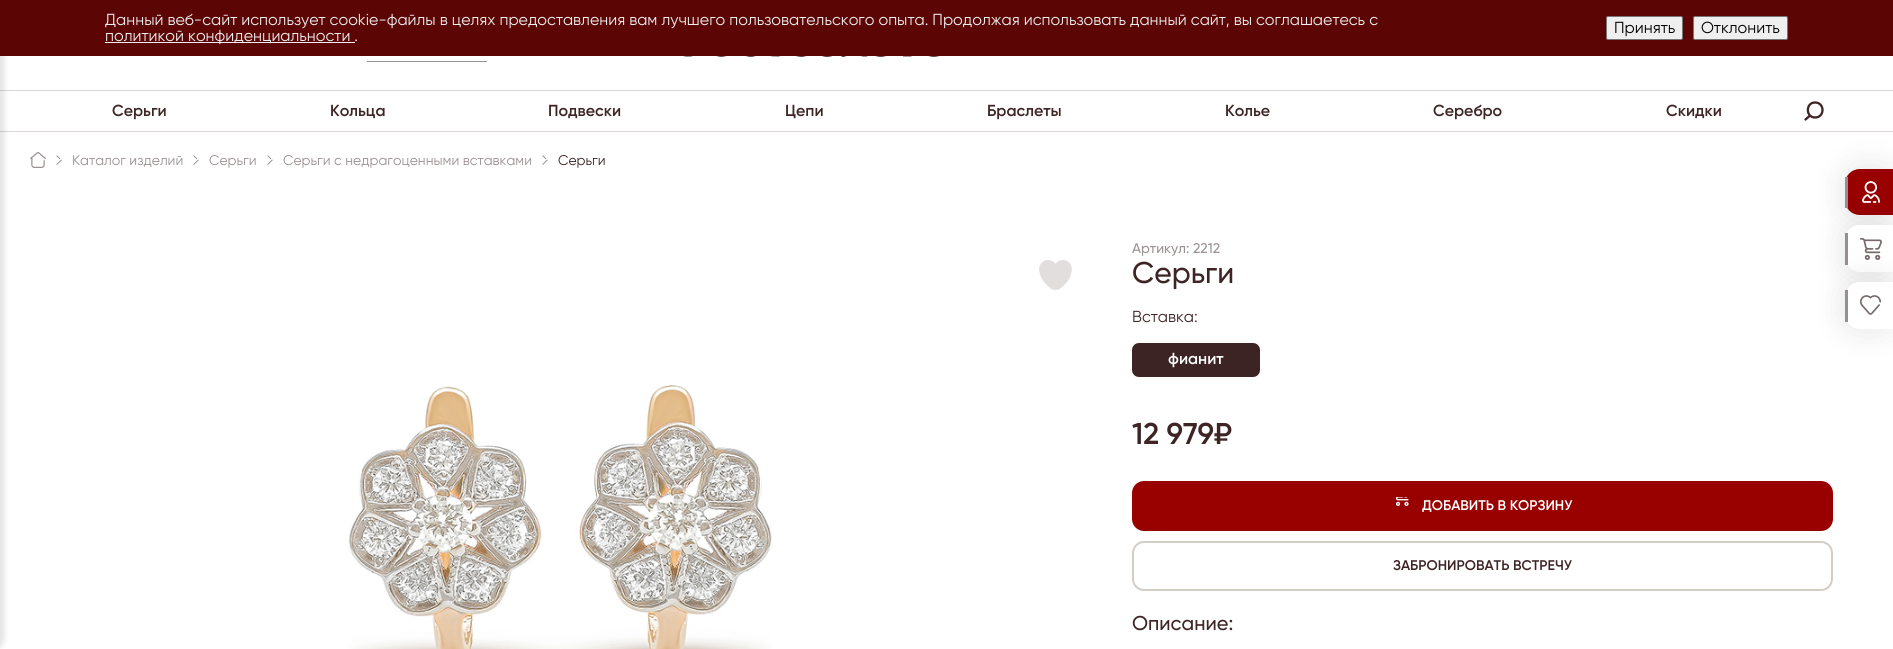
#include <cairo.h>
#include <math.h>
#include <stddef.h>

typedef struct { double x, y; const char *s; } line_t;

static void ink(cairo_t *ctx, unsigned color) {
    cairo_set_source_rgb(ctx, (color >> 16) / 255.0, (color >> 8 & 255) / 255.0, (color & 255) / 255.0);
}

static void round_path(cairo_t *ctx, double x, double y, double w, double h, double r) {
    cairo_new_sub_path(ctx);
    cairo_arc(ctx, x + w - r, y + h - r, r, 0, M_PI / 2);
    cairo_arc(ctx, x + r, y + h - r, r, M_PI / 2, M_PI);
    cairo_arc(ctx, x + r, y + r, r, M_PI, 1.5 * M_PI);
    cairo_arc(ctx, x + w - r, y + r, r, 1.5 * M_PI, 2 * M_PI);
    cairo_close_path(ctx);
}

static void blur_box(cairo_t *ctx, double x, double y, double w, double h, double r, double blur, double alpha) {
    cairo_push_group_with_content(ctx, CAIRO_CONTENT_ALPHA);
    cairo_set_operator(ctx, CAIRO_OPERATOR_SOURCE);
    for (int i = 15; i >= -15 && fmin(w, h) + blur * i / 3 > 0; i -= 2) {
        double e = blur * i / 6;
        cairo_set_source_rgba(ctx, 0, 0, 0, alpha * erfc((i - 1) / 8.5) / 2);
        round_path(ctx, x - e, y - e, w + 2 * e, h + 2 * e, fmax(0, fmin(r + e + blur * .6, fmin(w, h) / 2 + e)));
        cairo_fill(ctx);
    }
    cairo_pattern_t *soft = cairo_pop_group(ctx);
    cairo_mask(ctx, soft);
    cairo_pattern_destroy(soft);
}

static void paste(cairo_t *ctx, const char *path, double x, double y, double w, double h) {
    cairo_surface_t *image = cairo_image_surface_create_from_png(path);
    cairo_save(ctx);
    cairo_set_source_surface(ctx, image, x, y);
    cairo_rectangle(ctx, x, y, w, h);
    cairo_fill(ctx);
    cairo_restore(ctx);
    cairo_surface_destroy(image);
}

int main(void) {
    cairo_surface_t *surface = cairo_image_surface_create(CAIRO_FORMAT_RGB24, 1893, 649);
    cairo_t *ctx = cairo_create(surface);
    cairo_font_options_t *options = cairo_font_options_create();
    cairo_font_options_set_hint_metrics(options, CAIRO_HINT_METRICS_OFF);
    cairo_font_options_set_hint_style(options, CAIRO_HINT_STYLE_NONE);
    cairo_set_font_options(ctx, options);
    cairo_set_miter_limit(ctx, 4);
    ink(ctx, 0xFFFFFF);
    cairo_paint(ctx);
    ink(ctx, 0xDCD7D5);
    cairo_rectangle(ctx, 0, 90, 1893, 1);
    cairo_fill(ctx);
    cairo_rectangle(ctx, 0, 131, 1893, 1);
    cairo_fill(ctx);
    ink(ctx, 0x000000);
    blur_box(ctx, -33, -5, 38, 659, 25, 2.5, 0.1);
    cairo_new_path(ctx);
    cairo_move_to(ctx, 1815, 102.5);
    cairo_curve_to(ctx, 1805.5, 102.5, 1805.5, 117.5, 1815, 117.5);
    cairo_curve_to(ctx, 1825, 117.5, 1825, 102.5, 1815, 102.5);
    cairo_close_path(ctx);
    cairo_move_to(ctx, 1810, 115.5);
    cairo_line_to(ctx, 1805.5, 119.5);
    ink(ctx, 0x3E2425);
    cairo_set_line_width(ctx, 2.3);
    cairo_set_line_cap(ctx, CAIRO_LINE_CAP_ROUND);
    cairo_set_line_join(ctx, CAIRO_LINE_JOIN_ROUND);
    cairo_stroke(ctx);
    ink(ctx, 0x000000);
    blur_box(ctx, 1842, 166, 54, 52, 18, 15, 0.1);
    ink(ctx, 0x990000);
    cairo_new_path(ctx);
    cairo_move_to(ctx, 1860, 169);
    cairo_line_to(ctx, 1893, 169);
    cairo_line_to(ctx, 1893, 215);
    cairo_line_to(ctx, 1860, 215);
    cairo_curve_to(ctx, 1851.5, 215, 1845, 208.5, 1845, 200);
    cairo_line_to(ctx, 1845, 184);
    cairo_curve_to(ctx, 1845, 175.5, 1851.5, 169, 1860, 169);
    cairo_close_path(ctx);
    cairo_fill(ctx);
    paste(ctx, "media/1.png", 1862, 181, 18, 22);
    ink(ctx, 0x978F8F);
    cairo_rectangle(ctx, 1845, 177, 3, 31);
    cairo_fill(ctx);
    ink(ctx, 0x000000);
    blur_box(ctx, 1842, 222, 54, 53, 18, 15, 0.1);
    ink(ctx, 0xFFFFFF);
    cairo_new_path(ctx);
    cairo_move_to(ctx, 1860, 225);
    cairo_line_to(ctx, 1893, 225);
    cairo_line_to(ctx, 1893, 272);
    cairo_line_to(ctx, 1860, 272);
    cairo_curve_to(ctx, 1851.5, 272, 1845, 265.5, 1845, 257);
    cairo_line_to(ctx, 1845, 240);
    cairo_curve_to(ctx, 1845, 231.5, 1851.5, 225, 1860, 225);
    cairo_close_path(ctx);
    cairo_fill(ctx);
    paste(ctx, "media/2.png", 1860, 238, 22, 22);
    ink(ctx, 0x978F8F);
    cairo_rectangle(ctx, 1845, 233, 3, 32);
    cairo_fill(ctx);
    ink(ctx, 0x000000);
    blur_box(ctx, 1842, 279, 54, 53, 18, 15, 0.1);
    ink(ctx, 0xFFFFFF);
    cairo_new_path(ctx);
    cairo_move_to(ctx, 1860, 282);
    cairo_line_to(ctx, 1893, 282);
    cairo_line_to(ctx, 1893, 329);
    cairo_line_to(ctx, 1860, 329);
    cairo_curve_to(ctx, 1851.5, 329, 1845, 322.5, 1845, 314);
    cairo_line_to(ctx, 1845, 297);
    cairo_curve_to(ctx, 1845, 288.5, 1851.5, 282, 1860, 282);
    cairo_close_path(ctx);
    cairo_fill(ctx);
    paste(ctx, "media/3.png", 1860, 295, 21, 20);
    ink(ctx, 0x978F8F);
    cairo_rectangle(ctx, 1845, 290, 3, 32);
    cairo_fill(ctx);
    ink(ctx, 0x5C0505);
    cairo_rectangle(ctx, 0, 0, 1893, 56);
    cairo_fill(ctx);
    cairo_select_font_face(ctx, "Gilroy", CAIRO_FONT_SLANT_NORMAL, CAIRO_FONT_WEIGHT_NORMAL);
    cairo_set_font_size(ctx, 16);
    ink(ctx, 0xEEEEEE);
    cairo_move_to(ctx, 105, 25);
    cairo_show_text(ctx, "Данный веб-сайт использует cookie-файлы в целях предоставления вам лучшего пользовательского опыта. Продолжая использовать данный сайт, вы соглашаетесь с");
    cairo_rectangle(ctx, 105, 42, 250, 1);
    cairo_fill(ctx);
    cairo_move_to(ctx, 105, 41);
    cairo_show_text(ctx, "политикой конфиденциальности .");
    ink(ctx, 0xEFEFEF);
    round_path(ctx, 1606.5, 16.5, 76, 23, 1.5);
    cairo_fill_preserve(ctx);
    ink(ctx, 0x767676);
    cairo_set_line_width(ctx, 1);
    cairo_set_line_cap(ctx, CAIRO_LINE_CAP_BUTT);
    cairo_set_line_join(ctx, CAIRO_LINE_JOIN_MITER);
    cairo_stroke(ctx);
    ink(ctx, 0x000000);
    cairo_move_to(ctx, 1614, 33);
    cairo_show_text(ctx, "Принять");
    ink(ctx, 0xEFEFEF);
    round_path(ctx, 1693.5, 16.5, 94, 23, 1.5);
    cairo_fill_preserve(ctx);
    ink(ctx, 0x767676);
    cairo_stroke(ctx);
    ink(ctx, 0x000000);
    cairo_move_to(ctx, 1701, 33);
    cairo_show_text(ctx, "Отклонить");
    paste(ctx, "media/4.png", 683, 56, 256, 1);
    ink(ctx, 0x9B9292);
    cairo_rectangle(ctx, 367, 61, 120, 1);
    cairo_fill(ctx);
    cairo_select_font_face(ctx, "Gilroy SemiBold", CAIRO_FONT_SLANT_NORMAL, CAIRO_FONT_WEIGHT_NORMAL);
    ink(ctx, 0x3E2425);
    {
        static const line_t items[] = {
            {112, 116, "Серьги"},
            {330, 116, "Кольца"},
            {548, 116, "Подвески"},
            {785, 116, "Цепи"},
            {987, 116, "Браслеты"},
            {1225, 116, "Колье"},
            {1433, 116, "Серебро"},
            {1666, 116, "Скидки"},
        };
        for (size_t i = 0; i < sizeof items / sizeof *items; i++) {
            cairo_move_to(ctx, items[i].x, items[i].y);
            cairo_show_text(ctx, items[i].s);
        }
    }
    paste(ctx, "media/5.png", 30, 152, 16, 16);
    paste(ctx, "media/6.png", 56, 155, 6, 10);
    cairo_select_font_face(ctx, "Gilroy", CAIRO_FONT_SLANT_NORMAL, CAIRO_FONT_WEIGHT_NORMAL);
    cairo_set_font_size(ctx, 14);
    ink(ctx, 0x9B9292);
    cairo_move_to(ctx, 72, 165);
    cairo_show_text(ctx, "Каталог изделий");
    paste(ctx, "media/6.png", 193, 155, 6, 10);
    cairo_move_to(ctx, 209, 165);
    cairo_show_text(ctx, "Серьги");
    paste(ctx, "media/6.png", 267, 155, 6, 10);
    cairo_move_to(ctx, 283, 165);
    cairo_show_text(ctx, "Серьги с недрагоценными вставками");
    paste(ctx, "media/6.png", 542, 155, 6, 10);
    ink(ctx, 0x3E2425);
    cairo_move_to(ctx, 558, 165);
    cairo_show_text(ctx, "Серьги");
    paste(ctx, "media/7.png", 1039, 260, 33, 30);
    paste(ctx, "media/8.png", 348, 385, 424, 264);
    cairo_select_font_face(ctx, "Gilroy Medium", CAIRO_FONT_SLANT_NORMAL, CAIRO_FONT_WEIGHT_NORMAL);
    ink(ctx, 0x9B9292);
    cairo_move_to(ctx, 1132, 253);
    cairo_show_text(ctx, "Артикул: 2212");
    cairo_set_font_size(ctx, 30);
    ink(ctx, 0x3E2425);
    cairo_move_to(ctx, 1132, 283);
    cairo_show_text(ctx, "Серьги");
    cairo_select_font_face(ctx, "Gilroy", CAIRO_FONT_SLANT_NORMAL, CAIRO_FONT_WEIGHT_NORMAL);
    cairo_set_font_size(ctx, 16);
    cairo_move_to(ctx, 1132, 322);
    cairo_show_text(ctx, "Вставка:");
    ink(ctx, 0x3D2424);
    round_path(ctx, 1133, 344, 126, 32, 6);
    cairo_fill_preserve(ctx);
    cairo_set_line_width(ctx, 2);
    cairo_stroke(ctx);
    cairo_select_font_face(ctx, "Gilroy SemiBold", CAIRO_FONT_SLANT_NORMAL, CAIRO_FONT_WEIGHT_NORMAL);
    ink(ctx, 0xFFFFFF);
    cairo_move_to(ctx, 1168, 364);
    cairo_show_text(ctx, "фианит");
    cairo_set_font_size(ctx, 30);
    ink(ctx, 0x3E2425);
    cairo_move_to(ctx, 1132, 444);
    cairo_show_text(ctx, "12 979₽");
    ink(ctx, 0x990000);
    round_path(ctx, 1132, 481, 701, 50, 12);
    cairo_fill(ctx);
    paste(ctx, "media/9.png", 1396, 497, 13, 9);
    cairo_set_font_size(ctx, 14);
    ink(ctx, 0xFFFFFF);
    cairo_move_to(ctx, 1422, 510);
    cairo_show_text(ctx, "ДОБАВИТЬ В КОРЗИНУ");
    round_path(ctx, 1133, 542, 699, 48, 11);
    ink(ctx, 0xD4CDC6);
    cairo_stroke(ctx);
    ink(ctx, 0x3E2425);
    cairo_move_to(ctx, 1393, 570);
    cairo_show_text(ctx, "ЗАБРОНИРОВАТЬ ВСТРЕЧУ");
    cairo_select_font_face(ctx, "Gilroy Medium", CAIRO_FONT_SLANT_NORMAL, CAIRO_FONT_WEIGHT_NORMAL);
    cairo_set_font_size(ctx, 20);
    cairo_move_to(ctx, 1132, 630);
    cairo_show_text(ctx, "Описание:");
    cairo_surface_write_to_png(surface, "image.png");
    cairo_font_options_destroy(options);
    cairo_destroy(ctx);
    cairo_surface_destroy(surface);
    return 0;
}
